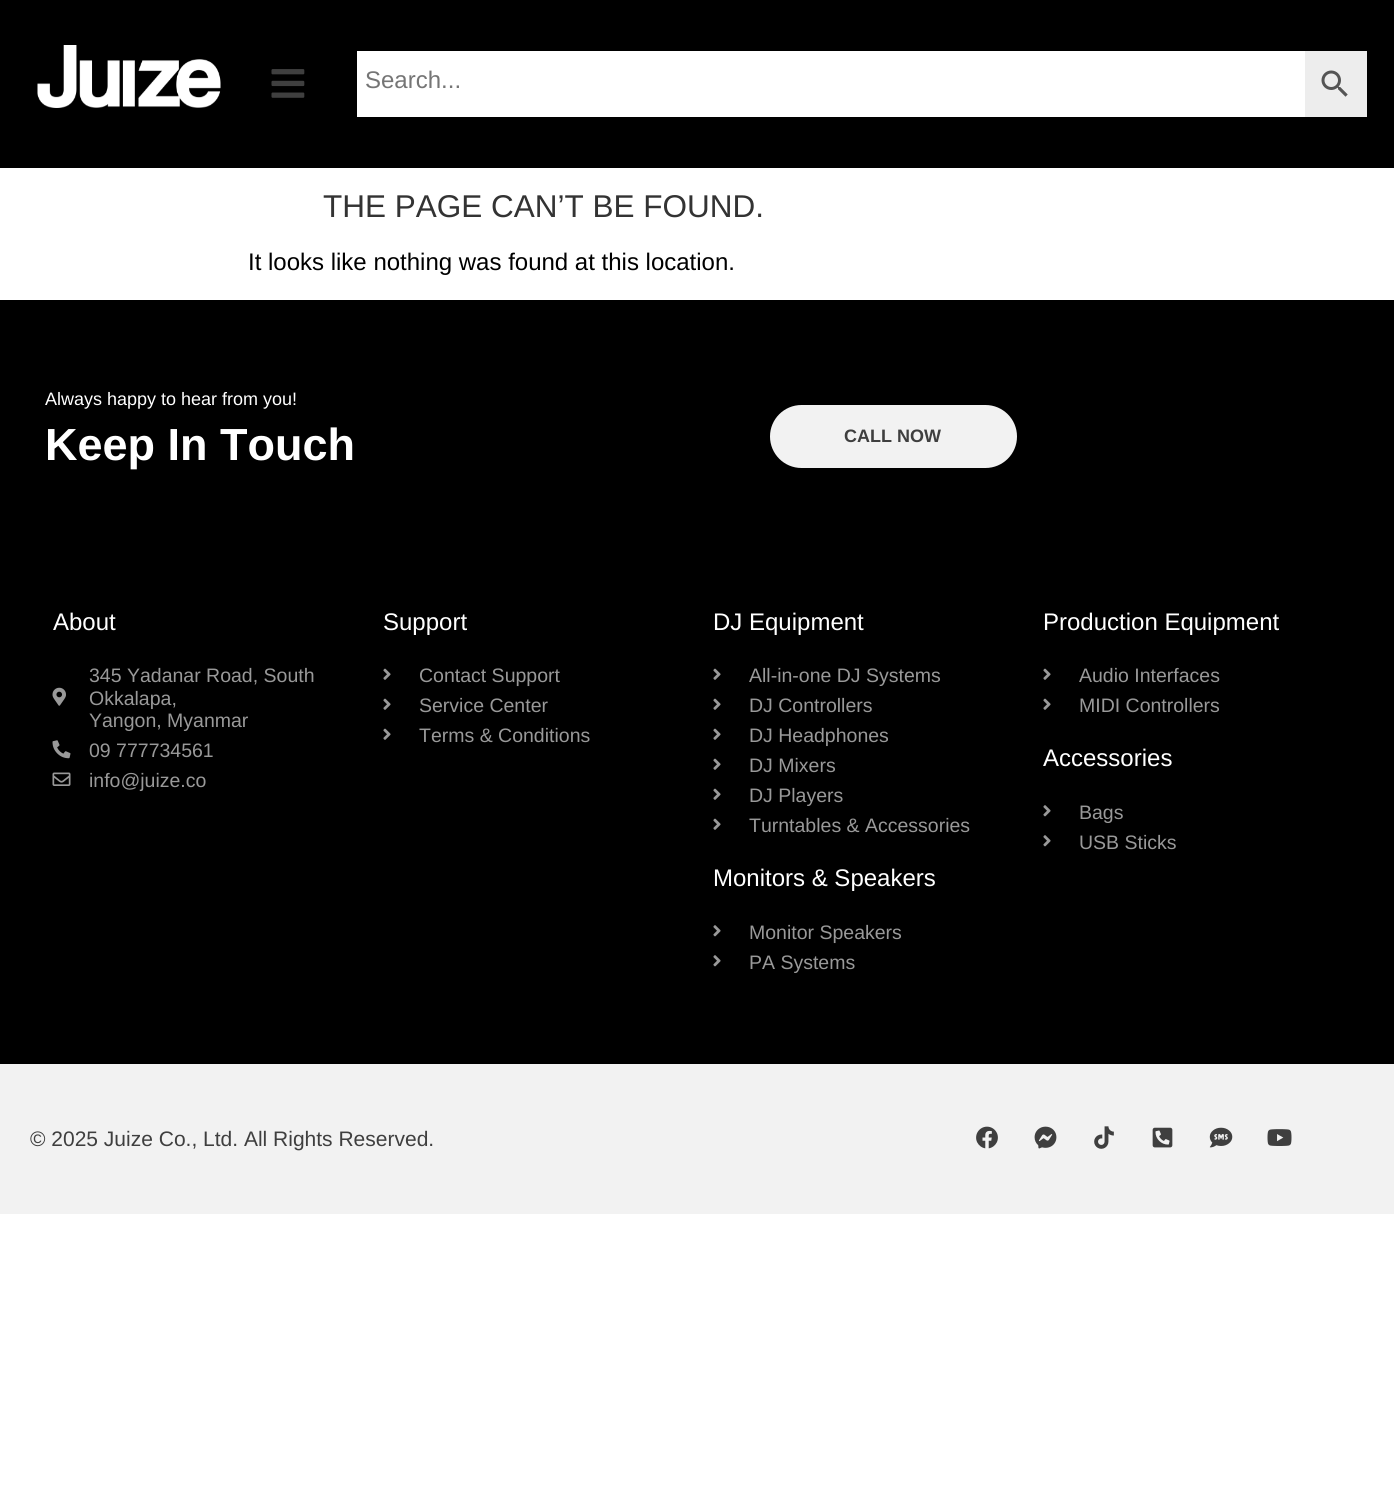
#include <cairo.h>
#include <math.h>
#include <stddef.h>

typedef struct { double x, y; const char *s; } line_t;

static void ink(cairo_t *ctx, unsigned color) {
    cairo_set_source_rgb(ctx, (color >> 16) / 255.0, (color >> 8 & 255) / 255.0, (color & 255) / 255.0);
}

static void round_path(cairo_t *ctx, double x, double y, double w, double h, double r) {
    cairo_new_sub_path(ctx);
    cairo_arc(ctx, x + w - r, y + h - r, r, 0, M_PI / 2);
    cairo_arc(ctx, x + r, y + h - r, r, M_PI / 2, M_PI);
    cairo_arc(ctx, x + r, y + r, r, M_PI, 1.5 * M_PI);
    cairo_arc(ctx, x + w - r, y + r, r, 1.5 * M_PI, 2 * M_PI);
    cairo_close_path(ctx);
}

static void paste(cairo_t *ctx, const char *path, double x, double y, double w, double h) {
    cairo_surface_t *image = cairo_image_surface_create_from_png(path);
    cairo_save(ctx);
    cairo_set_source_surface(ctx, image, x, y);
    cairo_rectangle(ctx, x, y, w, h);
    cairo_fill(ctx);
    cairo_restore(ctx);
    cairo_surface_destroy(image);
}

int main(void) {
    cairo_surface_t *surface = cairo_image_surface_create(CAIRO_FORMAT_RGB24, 1394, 1491);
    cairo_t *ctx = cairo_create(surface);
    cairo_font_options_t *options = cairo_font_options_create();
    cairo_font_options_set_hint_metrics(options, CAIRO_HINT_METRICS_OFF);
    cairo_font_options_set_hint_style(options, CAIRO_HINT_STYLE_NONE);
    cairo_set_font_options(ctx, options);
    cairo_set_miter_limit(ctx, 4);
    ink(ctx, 0xFFFFFF);
    cairo_paint(ctx);
    ink(ctx, 0x000000);
    cairo_rectangle(ctx, 0, 0, 1394, 168);
    cairo_fill(ctx);
    paste(ctx, "media/1.png", 37, 45, 184, 63);
    paste(ctx, "media/2.png", 271, 69, 34, 29);
    ink(ctx, 0xFFFFFF);
    cairo_rectangle(ctx, 357, 51, 948, 66);
    cairo_fill(ctx);
    cairo_select_font_face(ctx, "Liberation Sans", CAIRO_FONT_SLANT_NORMAL, CAIRO_FONT_WEIGHT_NORMAL);
    cairo_set_font_size(ctx, 24);
    ink(ctx, 0x757575);
    cairo_move_to(ctx, 365, 88);
    cairo_show_text(ctx, "Search...");
    ink(ctx, 0xEDEDED);
    cairo_rectangle(ctx, 1305, 51, 62, 66);
    cairo_fill(ctx);
    paste(ctx, "media/3.png", 1321, 70, 27, 27);
    cairo_set_font_size(ctx, 31.5);
    ink(ctx, 0x333333);
    cairo_move_to(ctx, 323, 217);
    cairo_show_text(ctx, "THE PAGE CAN’T BE FOUND.");
    cairo_set_font_size(ctx, 24);
    ink(ctx, 0x000000);
    cairo_move_to(ctx, 248, 270);
    cairo_show_text(ctx, "It looks like nothing was found at this location.");
    cairo_rectangle(ctx, 0, 300, 1394, 764);
    cairo_fill(ctx);
    cairo_set_font_size(ctx, 18);
    ink(ctx, 0xFFFFFF);
    cairo_move_to(ctx, 45, 405);
    cairo_show_text(ctx, "Always happy to hear from you!");
    cairo_select_font_face(ctx, "Liberation Sans", CAIRO_FONT_SLANT_NORMAL, CAIRO_FONT_WEIGHT_BOLD);
    cairo_set_font_size(ctx, 45);
    cairo_move_to(ctx, 45, 460);
    cairo_show_text(ctx, "Keep In Touch");
    ink(ctx, 0xF2F2F2);
    round_path(ctx, 770, 405, 247, 63, 31.5);
    cairo_fill(ctx);
    cairo_set_font_size(ctx, 18);
    ink(ctx, 0x3F3F3F);
    cairo_move_to(ctx, 844, 442);
    cairo_show_text(ctx, "CALL NOW");
    cairo_select_font_face(ctx, "Liberation Sans", CAIRO_FONT_SLANT_NORMAL, CAIRO_FONT_WEIGHT_NORMAL);
    cairo_set_font_size(ctx, 24);
    ink(ctx, 0xFFFFFF);
    cairo_move_to(ctx, 53, 630);
    cairo_show_text(ctx, "About");
    paste(ctx, "media/4.png", 52, 687, 14, 19);
    cairo_set_font_size(ctx, 19.5);
    ink(ctx, 0x999999);
    {
        static const line_t items[] = {
            {89, 682, "345 Yadanar Road, South"},
            {89, 705, "Okkalapa,"},
            {89, 727, "Yangon, Myanmar"},
        };
        for (size_t i = 0; i < sizeof items / sizeof *items; i++) {
            cairo_move_to(ctx, items[i].x, items[i].y);
            cairo_show_text(ctx, items[i].s);
        }
    }
    paste(ctx, "media/5.png", 52, 740, 19, 19);
    cairo_move_to(ctx, 89, 757);
    cairo_show_text(ctx, "09 777734561");
    paste(ctx, "media/6.png", 52, 772, 19, 14);
    cairo_move_to(ctx, 89, 787);
    cairo_show_text(ctx, "info@juize.co");
    cairo_set_font_size(ctx, 24);
    ink(ctx, 0xFFFFFF);
    cairo_move_to(ctx, 383, 630);
    cairo_show_text(ctx, "Support");
    paste(ctx, "media/7.png", 383, 668, 8, 12);
    cairo_set_font_size(ctx, 19.5);
    ink(ctx, 0x999999);
    cairo_move_to(ctx, 419, 682);
    cairo_show_text(ctx, "Contact Support");
    paste(ctx, "media/7.png", 383, 698, 8, 12);
    cairo_move_to(ctx, 419, 712);
    cairo_show_text(ctx, "Service Center");
    paste(ctx, "media/7.png", 383, 728, 8, 12);
    cairo_move_to(ctx, 419, 742);
    cairo_show_text(ctx, "Terms & Conditions");
    cairo_set_font_size(ctx, 24);
    ink(ctx, 0xFFFFFF);
    cairo_move_to(ctx, 713, 630);
    cairo_show_text(ctx, "DJ Equipment");
    paste(ctx, "media/7.png", 713, 668, 8, 12);
    cairo_set_font_size(ctx, 19.5);
    ink(ctx, 0x999999);
    cairo_move_to(ctx, 749, 682);
    cairo_show_text(ctx, "All-in-one DJ Systems");
    paste(ctx, "media/7.png", 713, 698, 8, 12);
    cairo_move_to(ctx, 749, 712);
    cairo_show_text(ctx, "DJ Controllers");
    paste(ctx, "media/7.png", 713, 728, 8, 12);
    cairo_move_to(ctx, 749, 742);
    cairo_show_text(ctx, "DJ Headphones");
    paste(ctx, "media/7.png", 713, 758, 8, 12);
    cairo_move_to(ctx, 749, 772);
    cairo_show_text(ctx, "DJ Mixers");
    paste(ctx, "media/7.png", 713, 788, 8, 12);
    cairo_move_to(ctx, 749, 802);
    cairo_show_text(ctx, "DJ Players");
    paste(ctx, "media/7.png", 713, 818, 8, 12);
    cairo_move_to(ctx, 749, 832);
    cairo_show_text(ctx, "Turntables & Accessories");
    cairo_set_font_size(ctx, 24);
    ink(ctx, 0xFFFFFF);
    cairo_move_to(ctx, 713, 886);
    cairo_show_text(ctx, "Monitors & Speakers");
    paste(ctx, "media/8.png", 713, 925, 8, 12);
    cairo_set_font_size(ctx, 19.5);
    ink(ctx, 0x999999);
    cairo_move_to(ctx, 749, 939);
    cairo_show_text(ctx, "Monitor Speakers");
    paste(ctx, "media/8.png", 713, 955, 8, 12);
    cairo_move_to(ctx, 749, 969);
    cairo_show_text(ctx, "PA Systems");
    cairo_set_font_size(ctx, 24);
    ink(ctx, 0xFFFFFF);
    cairo_move_to(ctx, 1043, 630);
    cairo_show_text(ctx, "Production Equipment");
    paste(ctx, "media/7.png", 1043, 668, 8, 12);
    cairo_set_font_size(ctx, 19.5);
    ink(ctx, 0x999999);
    cairo_move_to(ctx, 1079, 682);
    cairo_show_text(ctx, "Audio Interfaces");
    paste(ctx, "media/7.png", 1043, 698, 8, 12);
    cairo_move_to(ctx, 1079, 712);
    cairo_show_text(ctx, "MIDI Controllers");
    cairo_set_font_size(ctx, 24);
    ink(ctx, 0xFFFFFF);
    cairo_move_to(ctx, 1043, 766);
    cairo_show_text(ctx, "Accessories");
    paste(ctx, "media/8.png", 1043, 805, 8, 12);
    cairo_set_font_size(ctx, 19.5);
    ink(ctx, 0x999999);
    cairo_move_to(ctx, 1079, 819);
    cairo_show_text(ctx, "Bags");
    paste(ctx, "media/8.png", 1043, 835, 8, 12);
    cairo_move_to(ctx, 1079, 849);
    cairo_show_text(ctx, "USB Sticks");
    ink(ctx, 0xF2F2F2);
    cairo_rectangle(ctx, 0, 1064, 1394, 150);
    cairo_fill(ctx);
    cairo_set_font_size(ctx, 21);
    ink(ctx, 0x3F3F3F);
    cairo_move_to(ctx, 30, 1146);
    cairo_show_text(ctx, "© 2025 Juize Co., Ltd. All Rights Reserved.");
    paste(ctx, "media/9.png", 976, 1126, 22, 23);
    paste(ctx, "media/10.png", 1034, 1126, 23, 23);
    paste(ctx, "media/11.png", 1094, 1126, 20, 23);
    paste(ctx, "media/12.png", 1152, 1127, 21, 21);
    paste(ctx, "media/13.png", 1209, 1127, 24, 21);
    paste(ctx, "media/14.png", 1267, 1129, 25, 17);
    cairo_surface_write_to_png(surface, "image.png");
    cairo_font_options_destroy(options);
    cairo_destroy(ctx);
    cairo_surface_destroy(surface);
    return 0;
}
